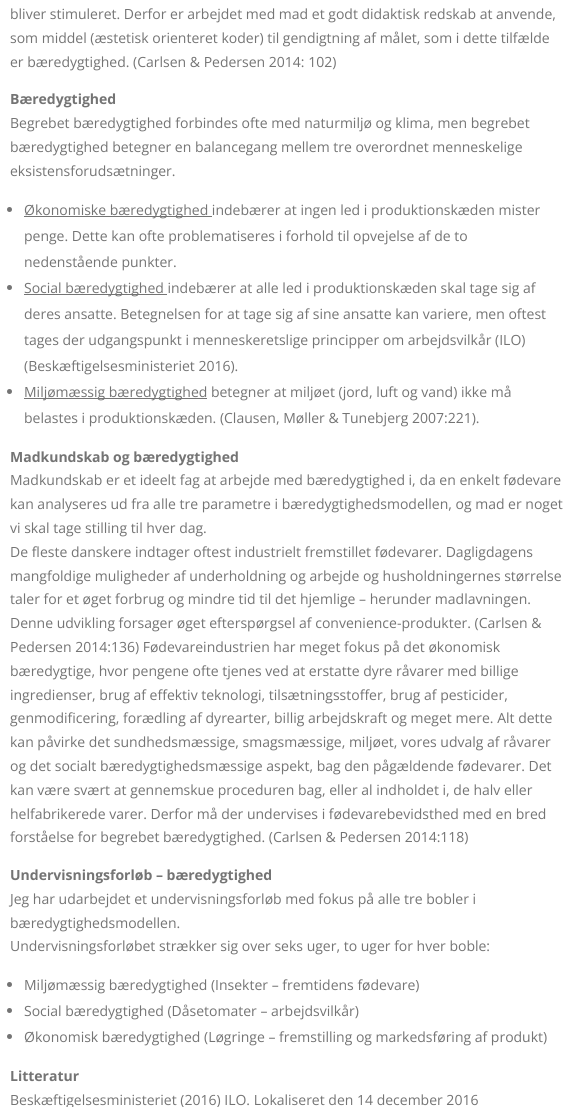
#include <cairo.h>
#include <math.h>
#include <stddef.h>

typedef struct { double x, y; const char *s; } line_t;

static void ink(cairo_t *ctx, unsigned color) {
    cairo_set_source_rgb(ctx, (color >> 16) / 255.0, (color >> 8 & 255) / 255.0, (color & 255) / 255.0);
}

int main(void) {
    cairo_surface_t *surface = cairo_image_surface_create(CAIRO_FORMAT_RGB24, 575, 1107);
    cairo_t *ctx = cairo_create(surface);
    cairo_font_options_t *options = cairo_font_options_create();
    cairo_font_options_set_hint_metrics(options, CAIRO_HINT_METRICS_OFF);
    cairo_font_options_set_hint_style(options, CAIRO_HINT_STYLE_NONE);
    cairo_set_font_options(ctx, options);
    cairo_set_miter_limit(ctx, 4);
    ink(ctx, 0xFFFFFF);
    cairo_paint(ctx);
    cairo_select_font_face(ctx, "Open Sans", CAIRO_FONT_SLANT_NORMAL, CAIRO_FONT_WEIGHT_NORMAL);
    cairo_set_font_size(ctx, 14);
    ink(ctx, 0x747474);
    {
        static const line_t items[] = {
            {10, 19, "bliver stimuleret. Derfor er arbejdet med mad et godt didaktisk redskab at anvende,"},
            {10, 43, "som middel (æstetisk orienteret koder) til gendigtning af målet, som i dette tilfælde"},
            {10, 67, "er bæredygtighed. (Carlsen & Pedersen 2014: 102)"},
        };
        for (size_t i = 0; i < sizeof items / sizeof *items; i++) {
            cairo_move_to(ctx, items[i].x, items[i].y);
            cairo_show_text(ctx, items[i].s);
        }
    }
    cairo_select_font_face(ctx, "Open Sans", CAIRO_FONT_SLANT_NORMAL, CAIRO_FONT_WEIGHT_BOLD);
    cairo_move_to(ctx, 10, 104);
    cairo_show_text(ctx, "Bæredygtighed");
    cairo_select_font_face(ctx, "Open Sans", CAIRO_FONT_SLANT_NORMAL, CAIRO_FONT_WEIGHT_NORMAL);
    {
        static const line_t items[] = {
            {10, 128, "Begrebet bæredygtighed forbindes ofte med naturmiljø og klima, men begrebet"},
            {10, 152, "bæredygtighed betegner en balancegang mellem tre overordnet menneskelige"},
            {10, 176, "eksistensforudsætninger."},
        };
        for (size_t i = 0; i < sizeof items / sizeof *items; i++) {
            cairo_move_to(ctx, items[i].x, items[i].y);
            cairo_show_text(ctx, items[i].s);
        }
    }
    cairo_new_path(ctx);
    cairo_arc(ctx, 9.5, 209.5, 2.5, 0, 2 * M_PI);
    cairo_fill(ctx);
    cairo_rectangle(ctx, 24, 216, 188, 1);
    cairo_fill(ctx);
    {
        static const line_t items[] = {
            {24, 215, "Økonomiske bæredygtighed indebærer at ingen led i produktionskæden mister"},
            {24, 241, "penge. Dette kan ofte problematiseres i forhold til opvejelse af de to"},
            {24, 267, "nedenstående punkter."},
        };
        for (size_t i = 0; i < sizeof items / sizeof *items; i++) {
            cairo_move_to(ctx, items[i].x, items[i].y);
            cairo_show_text(ctx, items[i].s);
        }
    }
    cairo_new_path(ctx);
    cairo_arc(ctx, 9.5, 287.5, 2.5, 0, 2 * M_PI);
    cairo_fill(ctx);
    cairo_rectangle(ctx, 24, 294, 143, 1);
    cairo_fill(ctx);
    {
        static const line_t items[] = {
            {24, 293, "Social bæredygtighed indebærer at alle led i produktionskæden skal tage sig af"},
            {24, 319, "deres ansatte. Betegnelsen for at tage sig af sine ansatte kan variere, men oftest"},
            {24, 345, "tages der udgangspunkt i menneskeretslige principper om arbejdsvilkår (ILO)"},
            {24, 371, "(Beskæftigelsesministeriet 2016)."},
        };
        for (size_t i = 0; i < sizeof items / sizeof *items; i++) {
            cairo_move_to(ctx, items[i].x, items[i].y);
            cairo_show_text(ctx, items[i].s);
        }
    }
    cairo_new_path(ctx);
    cairo_arc(ctx, 9.5, 391.5, 2.5, 0, 2 * M_PI);
    cairo_fill(ctx);
    cairo_rectangle(ctx, 24, 398, 183, 1);
    cairo_fill(ctx);
    cairo_move_to(ctx, 24, 397);
    cairo_show_text(ctx, "Miljømæssig bæredygtighed betegner at miljøet (jord, luft og vand) ikke må");
    cairo_move_to(ctx, 24, 423);
    cairo_show_text(ctx, "belastes i produktionskæden. (Clausen, Møller & Tunebjerg 2007:221).");
    cairo_select_font_face(ctx, "Open Sans", CAIRO_FONT_SLANT_NORMAL, CAIRO_FONT_WEIGHT_BOLD);
    cairo_move_to(ctx, 10, 462);
    cairo_show_text(ctx, "Madkundskab og bæredygtighed");
    cairo_select_font_face(ctx, "Open Sans", CAIRO_FONT_SLANT_NORMAL, CAIRO_FONT_WEIGHT_NORMAL);
    {
        static const line_t items[] = {
            {10, 485, "Madkundskab er et ideelt fag at arbejde med bæredygtighed i, da en enkelt fødevare"},
            {10, 509, "kan analyseres ud fra alle tre parametre i bæredygtighedsmodellen, og mad er noget"},
            {10, 533, "vi skal tage stilling til hver dag."},
            {10, 557, "De fleste danskere indtager oftest industrielt fremstillet fødevarer. Dagligdagens"},
            {10, 581, "mangfoldige muligheder af underholdning og arbejde og husholdningernes størrelse"},
            {10, 604, "taler for et øget forbrug og mindre tid til det hjemlige – herunder madlavningen."},
            {10, 628, "Denne udvikling forsager øget efterspørgsel af convenience-produkter. (Carlsen &"},
            {10, 652, "Pedersen 2014:136) Fødevareindustrien har meget fokus på det økonomisk"},
            {10, 676, "bæredygtige, hvor pengene ofte tjenes ved at erstatte dyre råvarer med billige"},
            {10, 700, "ingredienser, brug af effektiv teknologi, tilsætningsstoffer, brug af pesticider,"},
            {10, 723, "genmodificering, forædling af dyrearter, billig arbejdskraft og meget mere. Alt dette"},
            {10, 747, "kan påvirke det sundhedsmæssige, smagsmæssige, miljøet, vores udvalg af råvarer"},
            {10, 771, "og det socialt bæredygtighedsmæssige aspekt, bag den pågældende fødevarer. Det"},
            {10, 795, "kan være svært at gennemskue proceduren bag, eller al indholdet i, de halv eller"},
            {10, 819, "helfabrikerede varer. Derfor må der undervises i fødevarebevidsthed med en bred"},
            {10, 842, "forståelse for begrebet bæredygtighed. (Carlsen & Pedersen 2014:118)"},
        };
        for (size_t i = 0; i < sizeof items / sizeof *items; i++) {
            cairo_move_to(ctx, items[i].x, items[i].y);
            cairo_show_text(ctx, items[i].s);
        }
    }
    cairo_select_font_face(ctx, "Open Sans", CAIRO_FONT_SLANT_NORMAL, CAIRO_FONT_WEIGHT_BOLD);
    cairo_move_to(ctx, 10, 880);
    cairo_show_text(ctx, "Undervisningsforløb – bæredygtighed");
    cairo_select_font_face(ctx, "Open Sans", CAIRO_FONT_SLANT_NORMAL, CAIRO_FONT_WEIGHT_NORMAL);
    {
        static const line_t items[] = {
            {10, 904, "Jeg har udarbejdet et undervisningsforløb med fokus på alle tre bobler i"},
            {10, 928, "bæredygtighedsmodellen."},
            {10, 951, "Undervisningsforløbet strækker sig over seks uger, to uger for hver boble:"},
        };
        for (size_t i = 0; i < sizeof items / sizeof *items; i++) {
            cairo_move_to(ctx, items[i].x, items[i].y);
            cairo_show_text(ctx, items[i].s);
        }
    }
    cairo_new_path(ctx);
    cairo_arc(ctx, 9.5, 984.5, 2.5, 0, 2 * M_PI);
    cairo_fill(ctx);
    cairo_move_to(ctx, 24, 990);
    cairo_show_text(ctx, "Miljømæssig bæredygtighed (Insekter – fremtidens fødevare)");
    cairo_new_path(ctx);
    cairo_arc(ctx, 9.5, 1010.5, 2.5, 0, 2 * M_PI);
    cairo_fill(ctx);
    cairo_move_to(ctx, 24, 1016);
    cairo_show_text(ctx, "Social bæredygtighed (Dåsetomater – arbejdsvilkår)");
    cairo_new_path(ctx);
    cairo_arc(ctx, 9.5, 1036.5, 2.5, 0, 2 * M_PI);
    cairo_fill(ctx);
    cairo_move_to(ctx, 24, 1042);
    cairo_show_text(ctx, "Økonomisk bæredygtighed (Løgringe – fremstilling og markedsføring af produkt)");
    cairo_select_font_face(ctx, "Open Sans", CAIRO_FONT_SLANT_NORMAL, CAIRO_FONT_WEIGHT_BOLD);
    cairo_move_to(ctx, 10, 1081);
    cairo_show_text(ctx, "Litteratur");
    cairo_select_font_face(ctx, "Open Sans", CAIRO_FONT_SLANT_NORMAL, CAIRO_FONT_WEIGHT_NORMAL);
    cairo_move_to(ctx, 10, 1105);
    cairo_show_text(ctx, "Beskæftigelsesministeriet (2016) ILO. Lokaliseret den 14 december 2016");
    cairo_surface_write_to_png(surface, "image.png");
    cairo_font_options_destroy(options);
    cairo_destroy(ctx);
    cairo_surface_destroy(surface);
    return 0;
}
